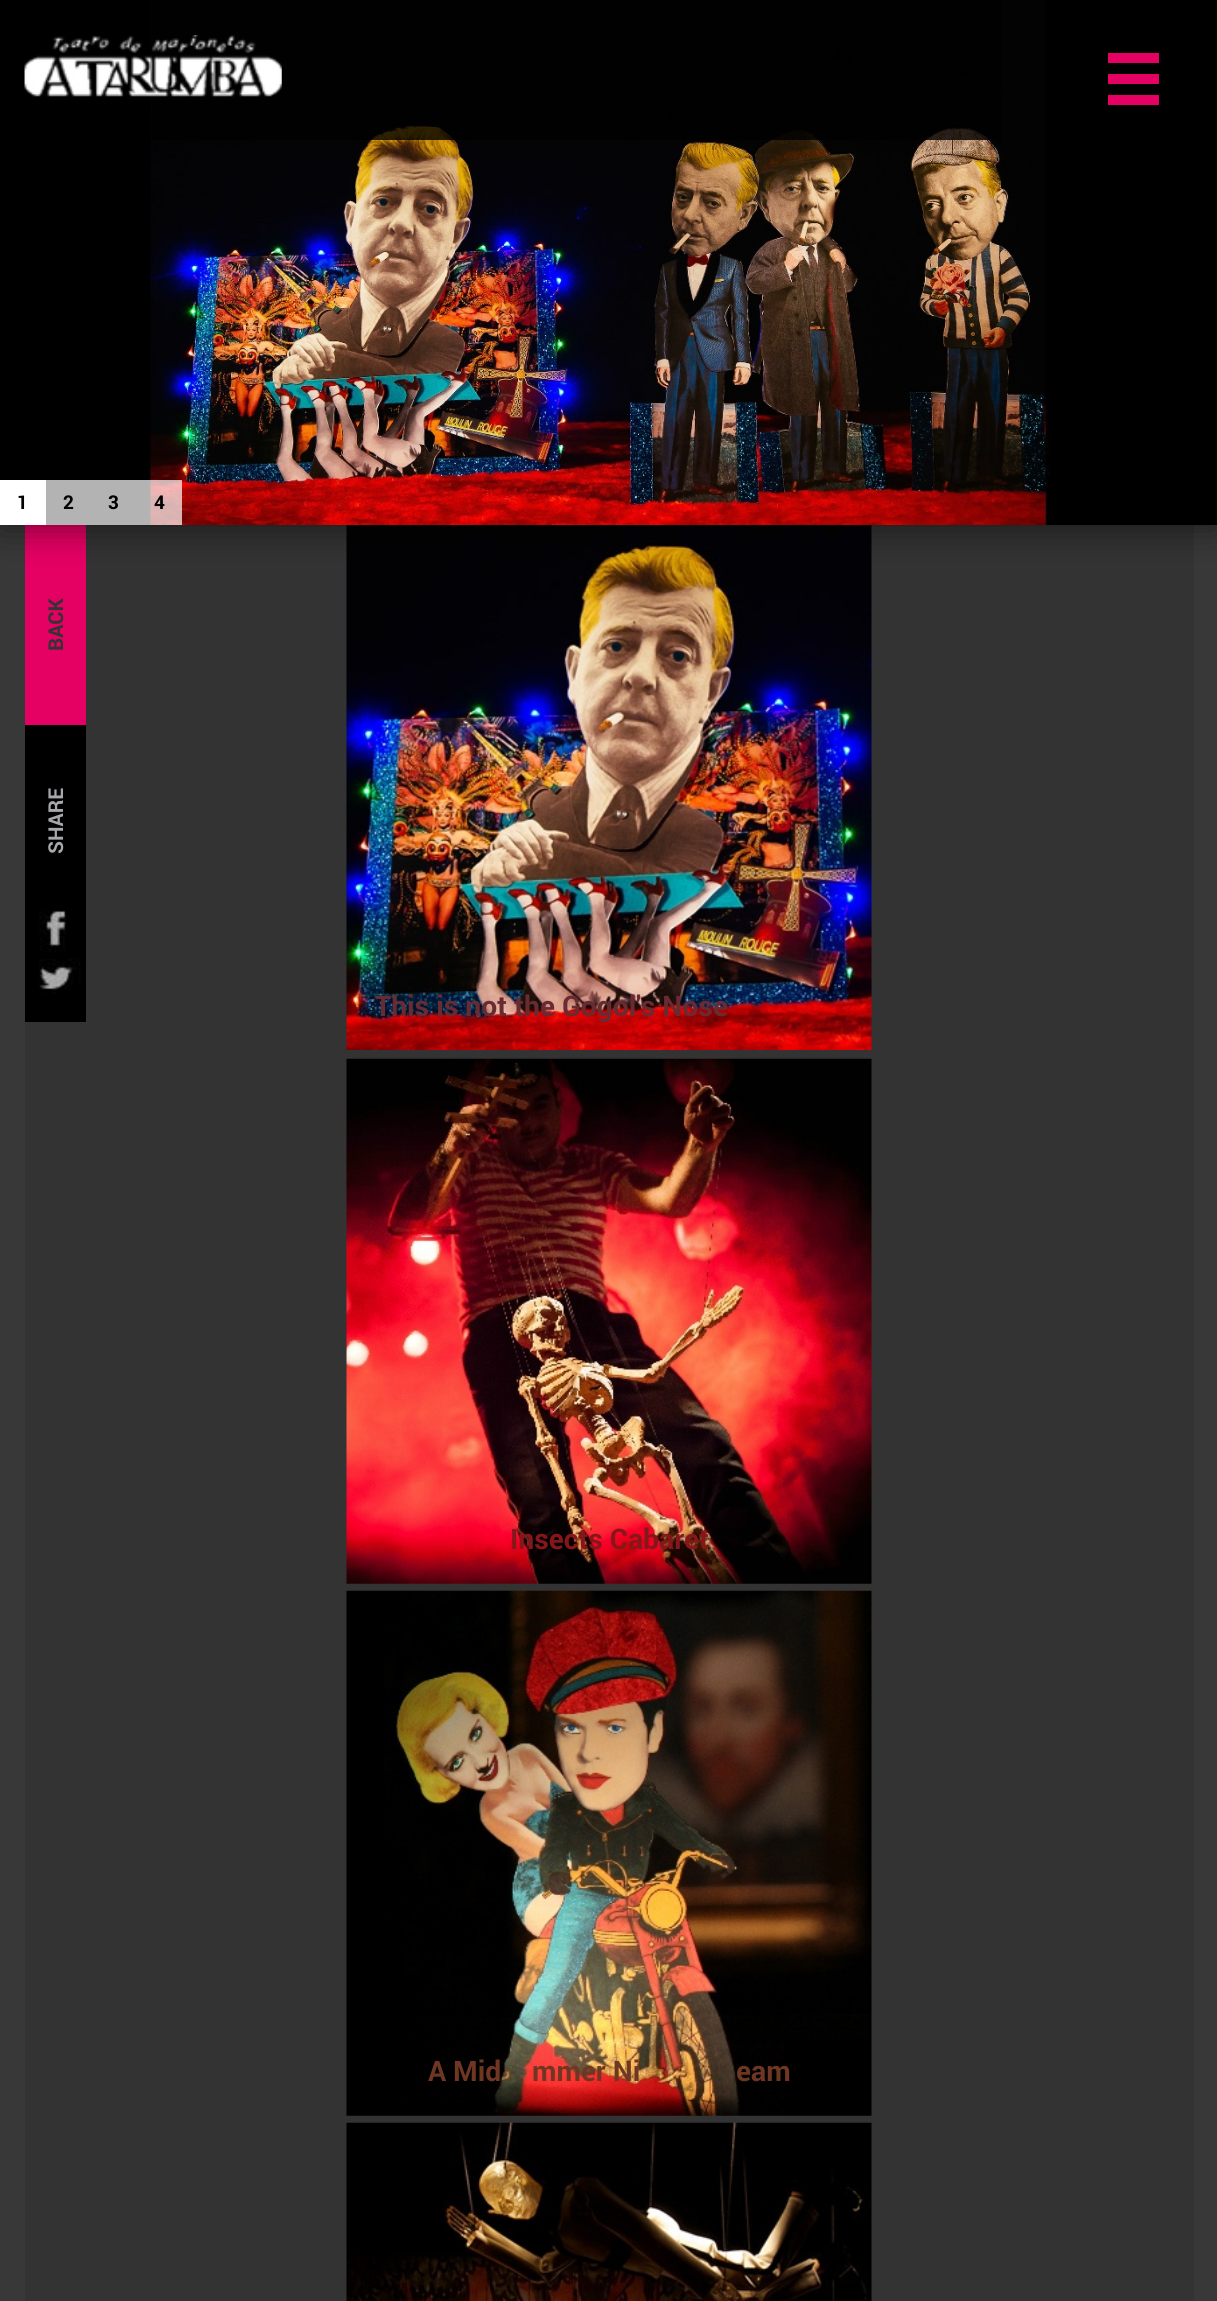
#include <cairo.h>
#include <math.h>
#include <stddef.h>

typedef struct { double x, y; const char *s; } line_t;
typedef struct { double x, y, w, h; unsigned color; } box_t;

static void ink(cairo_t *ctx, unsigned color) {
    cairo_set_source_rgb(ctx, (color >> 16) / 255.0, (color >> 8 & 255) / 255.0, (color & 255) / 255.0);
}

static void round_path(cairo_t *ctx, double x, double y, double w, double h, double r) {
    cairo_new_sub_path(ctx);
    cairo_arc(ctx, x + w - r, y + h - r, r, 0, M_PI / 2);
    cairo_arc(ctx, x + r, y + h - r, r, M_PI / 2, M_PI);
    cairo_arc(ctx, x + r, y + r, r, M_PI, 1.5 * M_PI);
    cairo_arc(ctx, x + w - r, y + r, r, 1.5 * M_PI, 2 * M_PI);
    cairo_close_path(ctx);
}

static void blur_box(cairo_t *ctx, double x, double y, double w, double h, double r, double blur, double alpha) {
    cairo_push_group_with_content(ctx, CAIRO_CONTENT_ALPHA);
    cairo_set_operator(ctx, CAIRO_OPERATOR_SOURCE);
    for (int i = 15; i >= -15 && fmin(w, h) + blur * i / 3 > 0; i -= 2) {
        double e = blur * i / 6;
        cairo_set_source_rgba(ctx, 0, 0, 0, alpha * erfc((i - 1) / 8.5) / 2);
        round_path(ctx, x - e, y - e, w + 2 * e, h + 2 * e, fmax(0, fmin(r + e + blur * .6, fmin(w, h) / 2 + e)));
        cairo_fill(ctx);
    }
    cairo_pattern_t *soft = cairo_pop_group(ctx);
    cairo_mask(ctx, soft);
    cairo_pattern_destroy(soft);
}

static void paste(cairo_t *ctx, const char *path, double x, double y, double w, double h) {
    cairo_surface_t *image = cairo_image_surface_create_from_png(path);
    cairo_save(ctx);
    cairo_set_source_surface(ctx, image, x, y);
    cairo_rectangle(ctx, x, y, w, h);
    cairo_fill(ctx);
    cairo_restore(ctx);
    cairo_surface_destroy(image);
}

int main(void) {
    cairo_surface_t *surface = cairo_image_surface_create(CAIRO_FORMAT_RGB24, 1217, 2301);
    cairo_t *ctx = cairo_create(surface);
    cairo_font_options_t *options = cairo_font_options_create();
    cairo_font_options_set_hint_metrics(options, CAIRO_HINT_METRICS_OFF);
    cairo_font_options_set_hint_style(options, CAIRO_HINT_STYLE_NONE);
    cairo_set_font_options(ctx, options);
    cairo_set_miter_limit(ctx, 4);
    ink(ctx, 0x383838);
    cairo_paint(ctx);
    ink(ctx, 0x333333);
    cairo_rectangle(ctx, 25, 525, 1169, 1776);
    cairo_fill(ctx);
    ink(ctx, 0xE50064);
    cairo_rectangle(ctx, 25, 525, 61, 200);
    cairo_fill(ctx);
    paste(ctx, "media/5.png", 346, 525, 526, 525);
    ink(ctx, 0x000000);
    blur_box(ctx, 0, 5, 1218, 525, 0, 17.5, 0.46);
    ink(ctx, 0x000000);
    cairo_rectangle(ctx, 0, 0, 1217, 525);
    cairo_fill(ctx);
    paste(ctx, "media/2.png", 147, 0, 903, 525);
    cairo_set_source_rgba(ctx, 0, 0, 0, 0.8);
    cairo_rectangle(ctx, 152, 0, 849, 140);
    cairo_fill(ctx);
    paste(ctx, "media/1.png", 24, 35, 258, 62);
    {
        static const box_t items[] = {
            {1108, 53, 51, 10, 0xE50064},
            {1108, 74, 51, 10, 0xE50064},
            {1108, 95, 51, 10, 0xE50064},
            {0, 480, 46, 45, 0xFFFFFF},
        };
        for (size_t i = 0; i < sizeof items / sizeof *items; i++) {
            ink(ctx, items[i].color);
            cairo_rectangle(ctx, items[i].x, items[i].y, items[i].w, items[i].h);
            cairo_fill(ctx);
        }
    }
    cairo_select_font_face(ctx, "Roboto", CAIRO_FONT_SLANT_NORMAL, CAIRO_FONT_WEIGHT_BOLD);
    cairo_set_font_size(ctx, 19);
    ink(ctx, 0x000000);
    cairo_move_to(ctx, 17, 509);
    cairo_show_text(ctx, "1");
    ink(ctx, 0xB3B3B3);
    cairo_rectangle(ctx, 46, 480, 91, 45);
    cairo_fill(ctx);
    ink(ctx, 0x000000);
    cairo_move_to(ctx, 63, 509);
    cairo_show_text(ctx, "2");
    cairo_move_to(ctx, 108, 509);
    cairo_show_text(ctx, "3");
    cairo_set_source_rgba(ctx, 1, 1, 1, 0.7);
    cairo_rectangle(ctx, 137, 480, 45, 45);
    cairo_fill(ctx);
    ink(ctx, 0x000000);
    cairo_move_to(ctx, 154, 509);
    cairo_show_text(ctx, "4");
    cairo_set_font_size(ctx, 20.5);
    ink(ctx, 0x333333);
    cairo_save(ctx);
    cairo_translate(ctx, 63, 651);
    cairo_rotate(ctx, -90 * M_PI / 180);
    cairo_move_to(ctx, 0, 0);
    cairo_show_text(ctx, "BACK");
    cairo_restore(ctx);
    ink(ctx, 0x000000);
    cairo_rectangle(ctx, 25, 725, 61, 297);
    cairo_fill(ctx);
    ink(ctx, 0xA7A8AA);
    cairo_save(ctx);
    cairo_translate(ctx, 63, 854);
    cairo_rotate(ctx, -90 * M_PI / 180);
    cairo_move_to(ctx, 0, 0);
    cairo_show_text(ctx, "SHARE");
    cairo_restore(ctx);
    paste(ctx, "media/3.png", 39, 910, 28, 42);
    paste(ctx, "media/4.png", 39, 959, 42, 35);
    cairo_set_font_size(ctx, 28.25);
    ink(ctx, 0x692B32);
    cairo_move_to(ctx, 375, 1016);
    cairo_show_text(ctx, "This is not the Gogol's Nose");
    paste(ctx, "media/6.png", 346, 1058, 526, 526);
    ink(ctx, 0x87161A);
    cairo_move_to(ctx, 510, 1549);
    cairo_show_text(ctx, "Insects Cabaret");
    paste(ctx, "media/7.png", 346, 1590, 526, 526);
    ink(ctx, 0x6F3722);
    {
        static const line_t items[] = {
            {428, 2081, "A Mid"},
            {532, 2081, "mmer Ni"},
            {736, 2081, "eam"},
        };
        for (size_t i = 0; i < sizeof items / sizeof *items; i++) {
            cairo_move_to(ctx, items[i].x, items[i].y);
            cairo_show_text(ctx, items[i].s);
        }
    }
    paste(ctx, "media/8.png", 346, 2122, 526, 179);
    cairo_surface_write_to_png(surface, "image.png");
    cairo_font_options_destroy(options);
    cairo_destroy(ctx);
    cairo_surface_destroy(surface);
    return 0;
}
